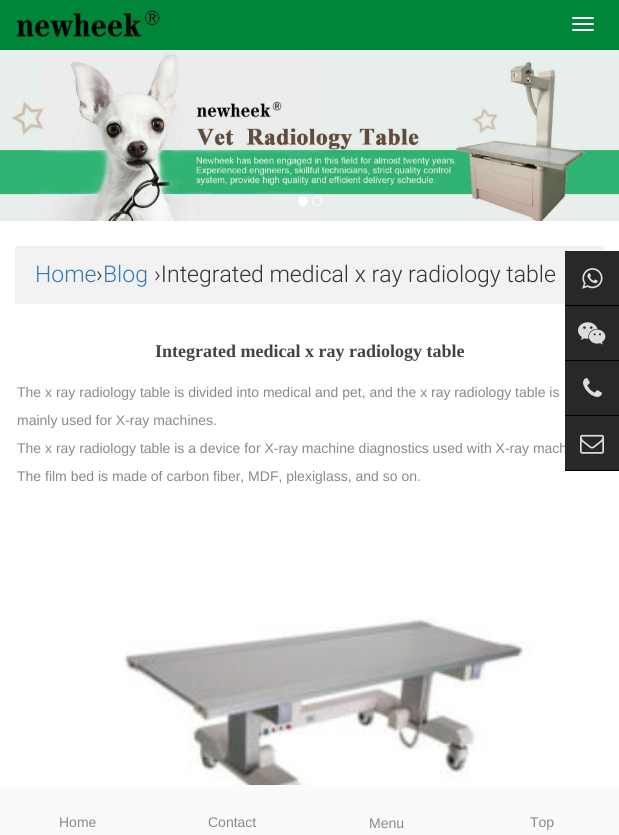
#include <cairo.h>
#include <math.h>
#include <stddef.h>

typedef struct { double x, y; const char *s; } line_t;

static void ink(cairo_t *ctx, unsigned color) {
    cairo_set_source_rgb(ctx, (color >> 16) / 255.0, (color >> 8 & 255) / 255.0, (color & 255) / 255.0);
}

static void round_path(cairo_t *ctx, double x, double y, double w, double h, double r) {
    cairo_new_sub_path(ctx);
    cairo_arc(ctx, x + w - r, y + h - r, r, 0, M_PI / 2);
    cairo_arc(ctx, x + r, y + h - r, r, M_PI / 2, M_PI);
    cairo_arc(ctx, x + r, y + r, r, M_PI, 1.5 * M_PI);
    cairo_arc(ctx, x + w - r, y + r, r, 1.5 * M_PI, 2 * M_PI);
    cairo_close_path(ctx);
}

static void paste(cairo_t *ctx, const char *path, double x, double y, double w, double h) {
    cairo_surface_t *image = cairo_image_surface_create_from_png(path);
    cairo_save(ctx);
    cairo_set_source_surface(ctx, image, x, y);
    cairo_rectangle(ctx, x, y, w, h);
    cairo_fill(ctx);
    cairo_restore(ctx);
    cairo_surface_destroy(image);
}

int main(void) {
    cairo_surface_t *surface = cairo_image_surface_create(CAIRO_FORMAT_RGB24, 619, 835);
    cairo_t *ctx = cairo_create(surface);
    cairo_font_options_t *options = cairo_font_options_create();
    cairo_font_options_set_hint_metrics(options, CAIRO_HINT_METRICS_OFF);
    cairo_font_options_set_hint_style(options, CAIRO_HINT_STYLE_NONE);
    cairo_set_font_options(ctx, options);
    cairo_set_miter_limit(ctx, 4);
    ink(ctx, 0xFFFFFF);
    cairo_paint(ctx);
    ink(ctx, 0x008639);
    cairo_rectangle(ctx, 0, 0, 619, 50);
    cairo_fill(ctx);
    paste(ctx, "media/1.png", 16, 10, 144, 27);
    ink(ctx, 0xFFFFFF);
    round_path(ctx, 572, 17, 22, 2, 1);
    cairo_fill(ctx);
    round_path(ctx, 572, 23, 22, 2, 1);
    cairo_fill(ctx);
    round_path(ctx, 572, 29, 22, 2, 1);
    cairo_fill(ctx);
    paste(ctx, "media/2.png", 0, 50, 619, 171);
    cairo_arc(ctx, 303, 201, 4.5, 0, 2 * M_PI);
    cairo_fill_preserve(ctx);
    cairo_set_line_width(ctx, 1);
    cairo_stroke(ctx);
    cairo_arc(ctx, 317, 201, 4.5, 0, 2 * M_PI);
    cairo_stroke(ctx);
    ink(ctx, 0xF2F2F2);
    cairo_rectangle(ctx, 15, 246, 589, 58);
    cairo_fill(ctx);
    cairo_select_font_face(ctx, "Roboto Light", CAIRO_FONT_SLANT_NORMAL, CAIRO_FONT_WEIGHT_NORMAL);
    cairo_set_font_size(ctx, 23);
    ink(ctx, 0x337AB7);
    cairo_move_to(ctx, 35, 282);
    cairo_show_text(ctx, "Home");
    ink(ctx, 0x333333);
    cairo_move_to(ctx, 96, 282);
    cairo_show_text(ctx, "›");
    ink(ctx, 0x337AB7);
    cairo_move_to(ctx, 103, 282);
    cairo_show_text(ctx, "Blog");
    ink(ctx, 0x333333);
    cairo_move_to(ctx, 154, 282);
    cairo_show_text(ctx, "›Integrated medical x ray radiology table");
    cairo_select_font_face(ctx, "Liberation Serif", CAIRO_FONT_SLANT_NORMAL, CAIRO_FONT_WEIGHT_BOLD);
    cairo_set_font_size(ctx, 18);
    ink(ctx, 0x434343);
    cairo_move_to(ctx, 155, 357);
    cairo_show_text(ctx, "Integrated medical x ray radiology table");
    cairo_select_font_face(ctx, "Liberation Sans", CAIRO_FONT_SLANT_NORMAL, CAIRO_FONT_WEIGHT_NORMAL);
    cairo_set_font_size(ctx, 14);
    ink(ctx, 0x898989);
    {
        static const line_t items[] = {
            {17, 397, "The x ray radiology table is divided into medical and pet, and the x ray radiology table is"},
            {17, 425, "mainly used for X-ray machines."},
            {17, 453, "The x ray radiology table is a device for X-ray machine diagnostics used with X-ray mach"},
            {17, 481, "The film bed is made of carbon fiber, MDF, plexiglass, and so on."},
        };
        for (size_t i = 0; i < sizeof items / sizeof *items; i++) {
            cairo_move_to(ctx, items[i].x, items[i].y);
            cairo_show_text(ctx, items[i].s);
        }
    }
    paste(ctx, "media/3.png", 123, 615, 409, 170);
    ink(ctx, 0x282828);
    cairo_rectangle(ctx, 565, 251, 54, 219);
    cairo_fill(ctx);
    ink(ctx, 0x000000);
    cairo_rectangle(ctx, 565, 305, 54, 1);
    cairo_fill(ctx);
    paste(ctx, "media/4.png", 582, 268, 21, 21);
    cairo_rectangle(ctx, 565, 360, 54, 1);
    cairo_fill(ctx);
    paste(ctx, "media/5.png", 578, 322, 28, 23);
    cairo_rectangle(ctx, 565, 415, 54, 1);
    cairo_fill(ctx);
    paste(ctx, "media/6.png", 583, 378, 19, 19);
    cairo_rectangle(ctx, 565, 470, 54, 1);
    cairo_fill(ctx);
    paste(ctx, "media/7.png", 580, 434, 24, 20);
    ink(ctx, 0xFAFAFA);
    cairo_rectangle(ctx, 0, 785, 619, 50);
    cairo_fill(ctx);
    ink(ctx, 0x898989);
    {
        static const line_t items[] = {
            {59, 827, "Home"},
            {208, 827, "Contact"},
            {369, 828, "Menu"},
            {530, 827, "Top"},
        };
        for (size_t i = 0; i < sizeof items / sizeof *items; i++) {
            cairo_move_to(ctx, items[i].x, items[i].y);
            cairo_show_text(ctx, items[i].s);
        }
    }
    cairo_surface_write_to_png(surface, "image.png");
    cairo_font_options_destroy(options);
    cairo_destroy(ctx);
    cairo_surface_destroy(surface);
    return 0;
}
